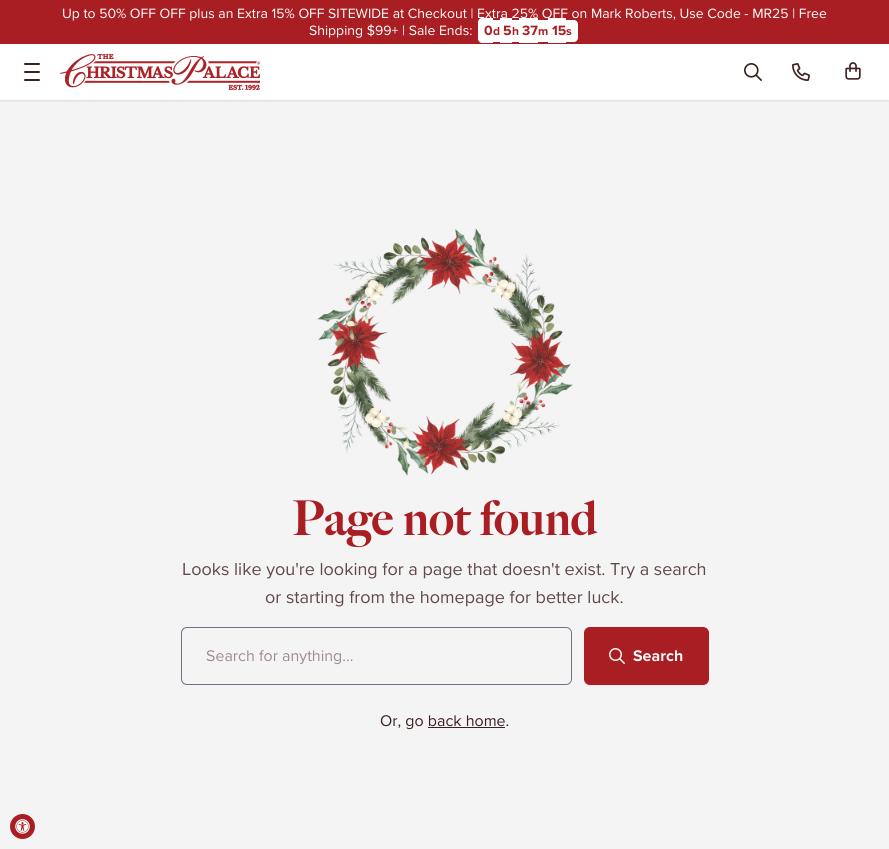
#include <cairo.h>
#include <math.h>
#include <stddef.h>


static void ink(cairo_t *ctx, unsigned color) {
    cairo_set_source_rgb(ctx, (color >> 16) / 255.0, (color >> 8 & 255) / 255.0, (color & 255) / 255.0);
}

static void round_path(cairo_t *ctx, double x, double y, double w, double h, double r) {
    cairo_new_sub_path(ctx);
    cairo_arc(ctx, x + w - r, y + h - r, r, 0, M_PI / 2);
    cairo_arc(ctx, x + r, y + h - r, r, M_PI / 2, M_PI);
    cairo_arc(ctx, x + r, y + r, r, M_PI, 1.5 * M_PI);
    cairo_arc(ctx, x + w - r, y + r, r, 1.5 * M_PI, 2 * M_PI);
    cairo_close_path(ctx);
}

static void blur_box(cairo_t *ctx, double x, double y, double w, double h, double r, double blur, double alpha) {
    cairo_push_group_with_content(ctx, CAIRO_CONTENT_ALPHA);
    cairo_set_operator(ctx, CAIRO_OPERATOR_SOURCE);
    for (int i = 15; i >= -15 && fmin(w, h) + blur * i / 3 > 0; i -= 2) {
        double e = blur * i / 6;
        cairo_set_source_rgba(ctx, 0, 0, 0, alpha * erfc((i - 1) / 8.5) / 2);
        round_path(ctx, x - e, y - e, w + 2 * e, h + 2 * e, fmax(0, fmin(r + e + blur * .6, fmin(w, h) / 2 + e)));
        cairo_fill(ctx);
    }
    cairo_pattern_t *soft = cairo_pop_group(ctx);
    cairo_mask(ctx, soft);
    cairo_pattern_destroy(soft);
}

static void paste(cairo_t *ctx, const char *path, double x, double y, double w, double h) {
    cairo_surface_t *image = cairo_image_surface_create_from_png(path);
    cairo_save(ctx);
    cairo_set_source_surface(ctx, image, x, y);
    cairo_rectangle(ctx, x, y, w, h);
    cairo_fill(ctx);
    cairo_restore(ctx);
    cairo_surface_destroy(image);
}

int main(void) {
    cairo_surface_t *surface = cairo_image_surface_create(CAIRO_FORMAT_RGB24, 889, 849);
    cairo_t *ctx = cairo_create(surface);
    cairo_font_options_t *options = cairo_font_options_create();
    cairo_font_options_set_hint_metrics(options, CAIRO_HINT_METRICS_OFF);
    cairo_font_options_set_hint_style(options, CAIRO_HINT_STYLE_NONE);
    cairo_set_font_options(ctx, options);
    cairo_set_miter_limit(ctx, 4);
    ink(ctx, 0xFFFFFF);
    cairo_paint(ctx);
    ink(ctx, 0xA91E22);
    cairo_rectangle(ctx, 0, 0, 889, 44);
    cairo_fill(ctx);
    cairo_select_font_face(ctx, "Proxima Nova", CAIRO_FONT_SLANT_NORMAL, CAIRO_FONT_WEIGHT_NORMAL);
    cairo_set_font_size(ctx, 14);
    ink(ctx, 0xFFFFFF);
    cairo_move_to(ctx, 62, 18);
    cairo_show_text(ctx, "Up to 50% OFF OFF plus an Extra 15% OFF SITEWIDE at Checkout | Extra 25% OFF on Mark Roberts, Use Code - MR25 | Free");
    cairo_move_to(ctx, 309, 35);
    cairo_show_text(ctx, "Shipping $99+ | Sale Ends:");
    cairo_new_path(ctx);
    cairo_move_to(ctx, 482, 18);
    cairo_line_to(ctx, 493, 18);
    cairo_line_to(ctx, 493, 43);
    cairo_line_to(ctx, 482, 43);
    cairo_curve_to(ctx, 480, 43, 478, 41, 478, 39);
    cairo_line_to(ctx, 478, 22);
    cairo_curve_to(ctx, 478, 20, 480, 18, 482, 18);
    cairo_close_path(ctx);
    cairo_fill(ctx);
    cairo_select_font_face(ctx, "Proxima Nova", CAIRO_FONT_SLANT_NORMAL, CAIRO_FONT_WEIGHT_BOLD);
    ink(ctx, 0xA91E22);
    cairo_move_to(ctx, 484, 35);
    cairo_show_text(ctx, "0");
    ink(ctx, 0xFFFFFF);
    cairo_rectangle(ctx, 493, 20, 7, 22);
    cairo_fill(ctx);
    cairo_set_font_size(ctx, 12);
    ink(ctx, 0xA91E22);
    cairo_move_to(ctx, 493, 35);
    cairo_show_text(ctx, "d");
    ink(ctx, 0xFFFFFF);
    cairo_rectangle(ctx, 500, 18, 12, 25);
    cairo_fill(ctx);
    cairo_set_font_size(ctx, 14);
    ink(ctx, 0xA91E22);
    cairo_move_to(ctx, 503, 35);
    cairo_show_text(ctx, "5");
    ink(ctx, 0xFFFFFF);
    cairo_rectangle(ctx, 512, 20, 7, 22);
    cairo_fill(ctx);
    cairo_set_font_size(ctx, 12);
    ink(ctx, 0xA91E22);
    cairo_move_to(ctx, 512, 35);
    cairo_show_text(ctx, "h");
    ink(ctx, 0xFFFFFF);
    cairo_rectangle(ctx, 519, 18, 19, 25);
    cairo_fill(ctx);
    cairo_set_font_size(ctx, 14);
    ink(ctx, 0xA91E22);
    cairo_move_to(ctx, 522, 35);
    cairo_show_text(ctx, "37");
    ink(ctx, 0xFFFFFF);
    cairo_rectangle(ctx, 538, 20, 10, 22);
    cairo_fill(ctx);
    cairo_set_font_size(ctx, 12);
    ink(ctx, 0xA91E22);
    cairo_move_to(ctx, 538, 35);
    cairo_show_text(ctx, "m");
    ink(ctx, 0xFFFFFF);
    cairo_rectangle(ctx, 548, 18, 18, 25);
    cairo_fill(ctx);
    cairo_set_font_size(ctx, 14);
    ink(ctx, 0xA91E22);
    cairo_move_to(ctx, 552, 35);
    cairo_show_text(ctx, "15");
    ink(ctx, 0xFFFFFF);
    cairo_new_path(ctx);
    cairo_move_to(ctx, 566, 20);
    cairo_line_to(ctx, 574, 20);
    cairo_curve_to(ctx, 576, 20, 578, 22, 578, 24);
    cairo_line_to(ctx, 578, 38);
    cairo_curve_to(ctx, 578, 40, 576, 42, 574, 42);
    cairo_line_to(ctx, 566, 42);
    cairo_close_path(ctx);
    cairo_fill(ctx);
    cairo_set_font_size(ctx, 12);
    ink(ctx, 0xA91E22);
    cairo_move_to(ctx, 566, 35);
    cairo_show_text(ctx, "s");
    ink(ctx, 0xF5F4F4);
    cairo_rectangle(ctx, 0, 100, 889, 749);
    cairo_fill(ctx);
    cairo_save(ctx);
    cairo_rectangle(ctx, 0, 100, 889, 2);
    cairo_clip(ctx);
    ink(ctx, 0x000000);
    blur_box(ctx, 0, 45, 889, 56, 0, 1.5, 0.1);
    cairo_restore(ctx);
    ink(ctx, 0x3F2021);
    round_path(ctx, 24, 63, 16, 2, 1);
    cairo_fill(ctx);
    round_path(ctx, 24, 71, 16, 2, 1);
    cairo_fill(ctx);
    round_path(ctx, 24, 79, 16, 2, 1);
    cairo_fill(ctx);
    paste(ctx, "media/1.png", 60, 54, 200, 36);
    paste(ctx, "media/2.png", 744, 63, 18, 18);
    paste(ctx, "media/3.png", 792, 63, 18, 18);
    paste(ctx, "media/4.png", 845, 62, 16, 18);
    paste(ctx, "media/5.png", 317, 228, 256, 248);
    cairo_select_font_face(ctx, "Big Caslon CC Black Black", CAIRO_FONT_SLANT_NORMAL, CAIRO_FONT_WEIGHT_NORMAL);
    cairo_set_font_size(ctx, 48);
    ink(ctx, 0xA91E22);
    cairo_move_to(ctx, 292, 535);
    cairo_show_text(ctx, "Page not found");
    cairo_select_font_face(ctx, "Proxima Nova", CAIRO_FONT_SLANT_NORMAL, CAIRO_FONT_WEIGHT_NORMAL);
    cairo_set_font_size(ctx, 18);
    ink(ctx, 0x624949);
    cairo_move_to(ctx, 182, 575);
    cairo_show_text(ctx, "Looks like you're looking for a page that doesn't exist. Try a search");
    cairo_move_to(ctx, 265, 603);
    cairo_show_text(ctx, "or starting from the homepage for better luck.");
    round_path(ctx, 181.5, 627.5, 390, 57, 5.5);
    ink(ctx, 0x6B7280);
    cairo_set_line_width(ctx, 1);
    cairo_stroke(ctx);
    cairo_set_font_size(ctx, 16);
    ink(ctx, 0x9D8D8D);
    cairo_move_to(ctx, 206, 661);
    cairo_show_text(ctx, "Search for anything...");
    ink(ctx, 0x000000);
    blur_box(ctx, 584, 628, 125, 58, 6, 1, 0.05);
    ink(ctx, 0xA91E22);
    round_path(ctx, 584, 627, 125, 58, 6);
    cairo_fill(ctx);
    paste(ctx, "media/6.png", 609, 648, 16, 16);
    cairo_select_font_face(ctx, "Proxima Nova", CAIRO_FONT_SLANT_NORMAL, CAIRO_FONT_WEIGHT_BOLD);
    ink(ctx, 0xFCF7F7);
    cairo_move_to(ctx, 633, 661);
    cairo_show_text(ctx, "Search");
    cairo_select_font_face(ctx, "Proxima Nova", CAIRO_FONT_SLANT_NORMAL, CAIRO_FONT_WEIGHT_NORMAL);
    ink(ctx, 0x3F2021);
    cairo_move_to(ctx, 380, 726);
    cairo_show_text(ctx, "Or, go back home.");
    cairo_rectangle(ctx, 428, 727, 77, 1);
    cairo_fill(ctx);
    ink(ctx, 0xA91E22);
    cairo_arc(ctx, 22.5, 826.5, 12.5, 0, 2 * M_PI);
    cairo_fill(ctx);
    paste(ctx, "media/7.png", 15, 819, 15, 15);
    cairo_surface_write_to_png(surface, "image.png");
    cairo_font_options_destroy(options);
    cairo_destroy(ctx);
    cairo_surface_destroy(surface);
    return 0;
}
